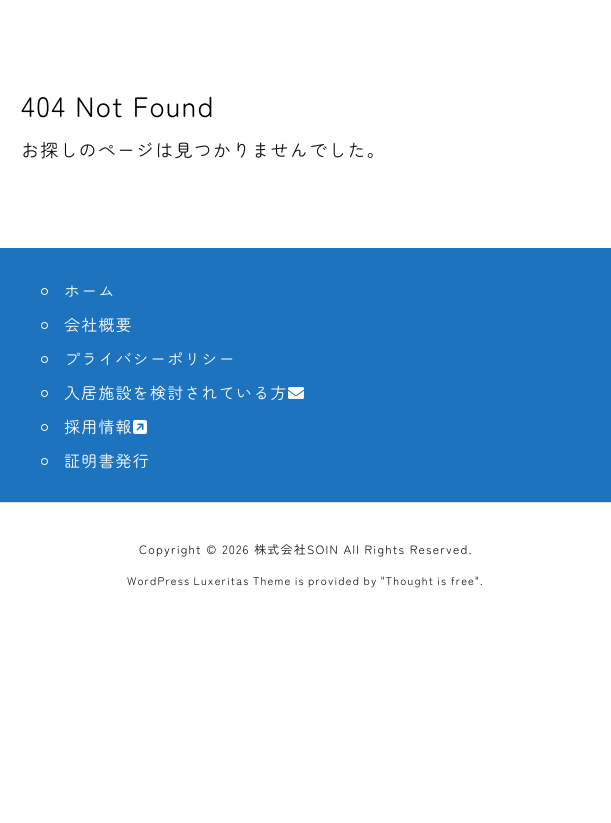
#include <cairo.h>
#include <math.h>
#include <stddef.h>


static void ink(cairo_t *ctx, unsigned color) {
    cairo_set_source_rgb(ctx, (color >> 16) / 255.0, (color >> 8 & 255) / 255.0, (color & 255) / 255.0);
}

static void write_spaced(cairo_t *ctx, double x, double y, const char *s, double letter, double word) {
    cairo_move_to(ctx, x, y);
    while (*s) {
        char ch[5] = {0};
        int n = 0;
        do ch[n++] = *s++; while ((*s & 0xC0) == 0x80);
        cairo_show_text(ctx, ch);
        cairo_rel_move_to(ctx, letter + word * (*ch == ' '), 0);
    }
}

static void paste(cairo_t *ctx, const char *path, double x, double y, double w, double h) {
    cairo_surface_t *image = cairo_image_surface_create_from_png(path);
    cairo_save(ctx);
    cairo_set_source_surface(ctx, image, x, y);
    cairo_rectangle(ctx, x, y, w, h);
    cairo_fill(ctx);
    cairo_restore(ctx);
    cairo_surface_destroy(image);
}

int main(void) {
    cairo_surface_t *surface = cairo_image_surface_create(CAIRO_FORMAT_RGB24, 611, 823);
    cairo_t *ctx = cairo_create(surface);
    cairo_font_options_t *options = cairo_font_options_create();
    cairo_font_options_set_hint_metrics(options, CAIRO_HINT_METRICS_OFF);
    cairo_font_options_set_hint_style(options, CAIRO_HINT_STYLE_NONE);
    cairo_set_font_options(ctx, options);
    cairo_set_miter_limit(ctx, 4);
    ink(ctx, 0xFFFFFF);
    cairo_paint(ctx);
    cairo_select_font_face(ctx, "Zen Maru Gothic", CAIRO_FONT_SLANT_NORMAL, CAIRO_FONT_WEIGHT_NORMAL);
    cairo_set_font_size(ctx, 28);
    ink(ctx, 0x000000);
    write_spaced(ctx, 21, 117, "404 Not Found", 1.2, 0);
    cairo_set_font_size(ctx, 18);
    ink(ctx, 0x111111);
    write_spaced(ctx, 21, 157, "お探しのページは見つかりませんでした。", 1.2, 0);
    ink(ctx, 0x1E73BE);
    cairo_rectangle(ctx, 0, 248, 611, 254);
    cairo_fill(ctx);
    cairo_arc(ctx, 44.5, 291.5, 3, 0, 2 * M_PI);
    ink(ctx, 0xFFFFFF);
    cairo_set_line_width(ctx, 1);
    cairo_stroke(ctx);
    cairo_set_font_size(ctx, 16);
    write_spaced(ctx, 64, 297, "ホーム", 1.2, 0);
    cairo_new_path(ctx);
    cairo_arc(ctx, 44.5, 325.5, 3, 0, 2 * M_PI);
    cairo_stroke(ctx);
    write_spaced(ctx, 64, 331, "会社概要", 1.2, 0);
    cairo_new_path(ctx);
    cairo_arc(ctx, 44.5, 359.5, 3, 0, 2 * M_PI);
    cairo_stroke(ctx);
    write_spaced(ctx, 64, 365, "プライバシーポリシー", 1.2, 0);
    cairo_new_path(ctx);
    cairo_arc(ctx, 44.5, 393.5, 3, 0, 2 * M_PI);
    cairo_stroke(ctx);
    write_spaced(ctx, 64, 399, "入居施設を検討されている方", 1.2, 0);
    paste(ctx, "media/1.png", 288, 387, 16, 12);
    cairo_arc(ctx, 44.5, 427.5, 3, 0, 2 * M_PI);
    cairo_stroke(ctx);
    write_spaced(ctx, 64, 433, "採用情報", 1.2, 0);
    paste(ctx, "media/2.png", 133, 420, 14, 14);
    cairo_arc(ctx, 44.5, 461.5, 3, 0, 2 * M_PI);
    cairo_stroke(ctx);
    write_spaced(ctx, 64, 467, "証明書発行", 1.2, 0);
    ink(ctx, 0xDDDDDD);
    cairo_rectangle(ctx, 0, 502, 611, 1);
    cairo_fill(ctx);
    cairo_set_font_size(ctx, 12);
    ink(ctx, 0x111111);
    write_spaced(ctx, 139, 554, "Copyright © 2026 株式会社SOIN All Rights Reserved.", 1.2, 0);
    cairo_set_font_size(ctx, 11);
    write_spaced(ctx, 127, 585, "WordPress Luxeritas Theme is provided by \"Thought is free", 1.2, -1);
    write_spaced(ctx, 475, 585, "\".", 1.2, 0);
    cairo_surface_write_to_png(surface, "image.png");
    cairo_font_options_destroy(options);
    cairo_destroy(ctx);
    cairo_surface_destroy(surface);
    return 0;
}
